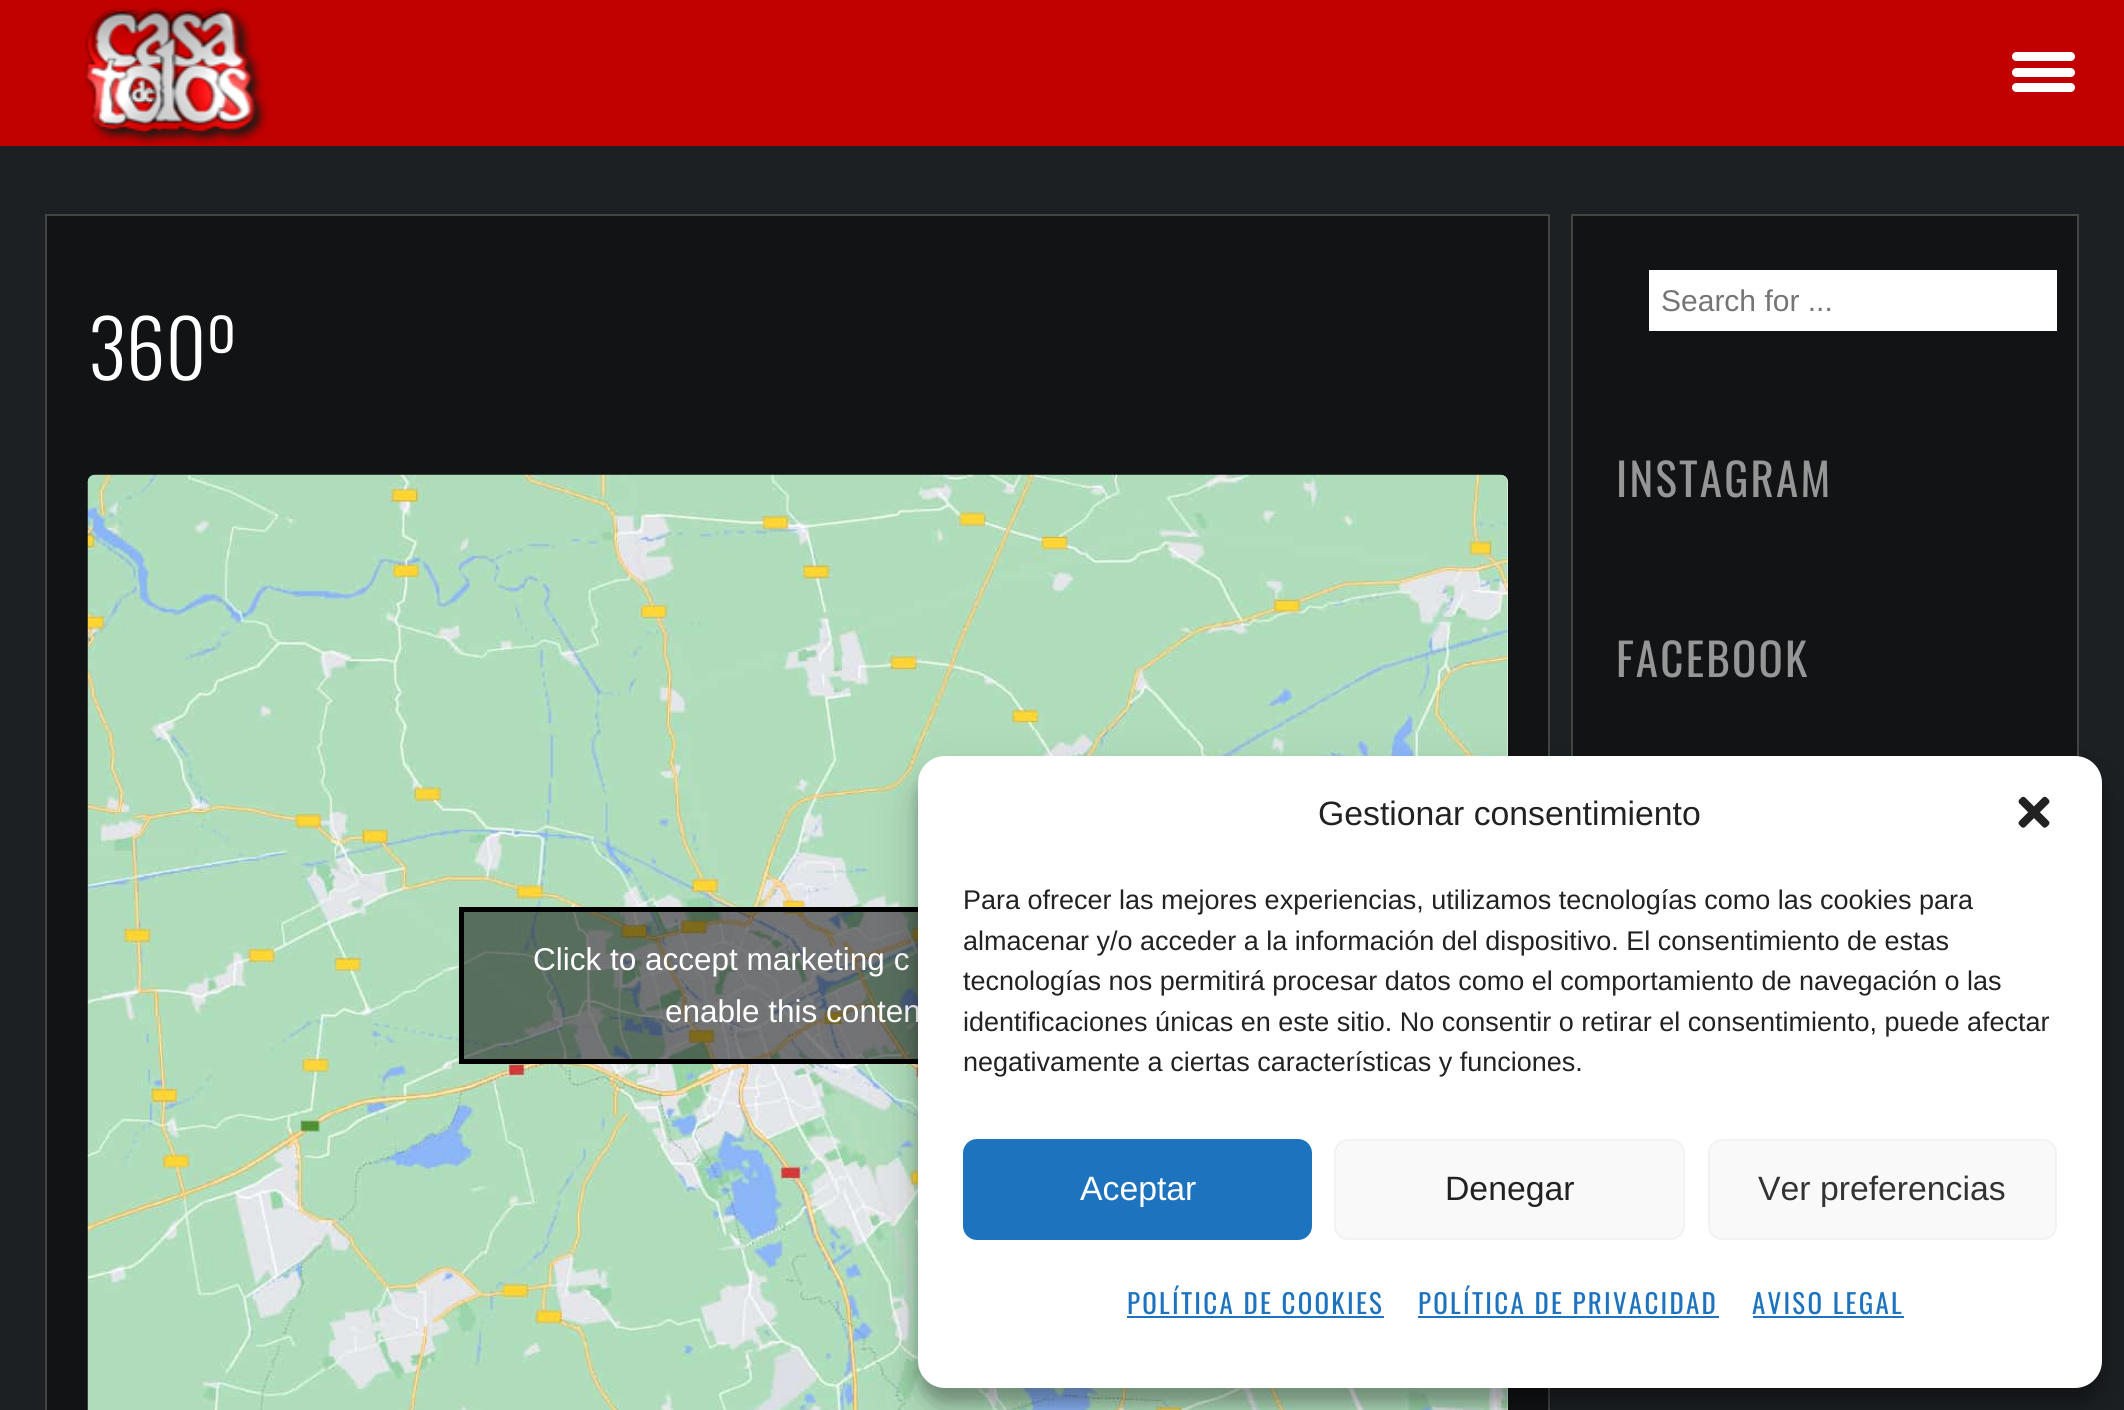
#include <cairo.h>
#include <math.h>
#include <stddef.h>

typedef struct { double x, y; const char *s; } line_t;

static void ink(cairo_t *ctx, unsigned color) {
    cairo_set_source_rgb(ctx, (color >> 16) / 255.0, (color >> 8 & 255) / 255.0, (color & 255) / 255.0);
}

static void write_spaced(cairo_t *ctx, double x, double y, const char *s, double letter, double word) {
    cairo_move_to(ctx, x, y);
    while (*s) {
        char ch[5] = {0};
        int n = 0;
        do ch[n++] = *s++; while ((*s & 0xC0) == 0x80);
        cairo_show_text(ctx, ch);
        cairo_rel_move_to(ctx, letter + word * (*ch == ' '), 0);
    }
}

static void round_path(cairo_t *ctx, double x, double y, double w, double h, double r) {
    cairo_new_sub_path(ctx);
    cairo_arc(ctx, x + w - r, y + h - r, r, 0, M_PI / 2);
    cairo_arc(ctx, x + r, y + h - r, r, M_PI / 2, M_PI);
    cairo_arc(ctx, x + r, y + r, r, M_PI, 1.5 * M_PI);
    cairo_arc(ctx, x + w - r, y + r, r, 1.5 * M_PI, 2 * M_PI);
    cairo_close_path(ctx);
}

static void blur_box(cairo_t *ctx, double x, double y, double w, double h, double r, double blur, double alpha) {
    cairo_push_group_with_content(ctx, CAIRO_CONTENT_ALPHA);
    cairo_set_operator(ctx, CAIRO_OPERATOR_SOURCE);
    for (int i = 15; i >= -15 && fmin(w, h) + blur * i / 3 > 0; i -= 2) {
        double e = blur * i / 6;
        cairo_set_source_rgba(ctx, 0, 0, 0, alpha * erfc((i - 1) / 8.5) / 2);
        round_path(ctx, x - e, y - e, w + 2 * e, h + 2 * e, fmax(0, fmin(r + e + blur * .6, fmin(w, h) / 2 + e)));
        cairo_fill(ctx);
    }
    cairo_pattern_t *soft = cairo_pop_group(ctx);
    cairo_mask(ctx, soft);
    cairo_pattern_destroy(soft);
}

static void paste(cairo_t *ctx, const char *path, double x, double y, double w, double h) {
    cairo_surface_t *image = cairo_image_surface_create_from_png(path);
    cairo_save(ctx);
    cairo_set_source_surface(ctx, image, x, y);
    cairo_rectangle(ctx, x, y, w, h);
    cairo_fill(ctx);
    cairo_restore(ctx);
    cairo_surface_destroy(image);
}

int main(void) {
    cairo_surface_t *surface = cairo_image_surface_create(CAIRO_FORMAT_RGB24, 2124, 1410);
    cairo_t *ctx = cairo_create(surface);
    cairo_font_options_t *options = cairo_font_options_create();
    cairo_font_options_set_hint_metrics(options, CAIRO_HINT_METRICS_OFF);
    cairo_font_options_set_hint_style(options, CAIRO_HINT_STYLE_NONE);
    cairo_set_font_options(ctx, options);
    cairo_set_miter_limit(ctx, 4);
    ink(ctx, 0x1C2023);
    cairo_paint(ctx);
    ink(ctx, 0xC10000);
    cairo_rectangle(ctx, 0, 0, 2124, 146);
    cairo_fill(ctx);
    paste(ctx, "media/1.png", 85, 7, 183, 138);
    ink(ctx, 0xFFFFFF);
    round_path(ctx, 2012, 52, 63, 9, 4.5);
    cairo_fill(ctx);
    round_path(ctx, 2012, 68, 63, 9, 4.5);
    cairo_fill(ctx);
    round_path(ctx, 2012, 83, 63, 9, 4.5);
    cairo_fill(ctx);
    ink(ctx, 0x111315);
    cairo_rectangle(ctx, 46, 215, 1503, 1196);
    cairo_fill_preserve(ctx);
    ink(ctx, 0x434543);
    cairo_stroke(ctx);
    cairo_select_font_face(ctx, "Oswald Light", CAIRO_FONT_SLANT_NORMAL, CAIRO_FONT_WEIGHT_NORMAL);
    cairo_set_font_size(ctx, 79);
    ink(ctx, 0xFFFFFF);
    cairo_move_to(ctx, 88, 380);
    cairo_show_text(ctx, "360º");
    ink(ctx, 0x000000);
    blur_box(ctx, 88, 475, 1420, 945, 7, 1, 0.5);
    ink(ctx, 0xFFFFFF);
    round_path(ctx, 88, 475, 1420, 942, 7);
    cairo_fill(ctx);
    paste(ctx, "media/2.png", 87, 474, 1421, 936);
    cairo_set_source_rgba(ctx, 0, 0, 0, 0.5);
    cairo_rectangle(ctx, 464, 912, 454, 147);
    cairo_fill(ctx);
    cairo_rectangle(ctx, 461.5, 909.5, 670, 152);
    ink(ctx, 0x000000);
    cairo_set_line_width(ctx, 5);
    cairo_stroke(ctx);
    cairo_select_font_face(ctx, "Liberation Sans", CAIRO_FONT_SLANT_NORMAL, CAIRO_FONT_WEIGHT_NORMAL);
    cairo_set_font_size(ctx, 31.5);
    ink(ctx, 0xFFFFFF);
    cairo_move_to(ctx, 533, 970);
    cairo_show_text(ctx, "Click to accept marketing c");
    cairo_move_to(ctx, 665, 1022);
    cairo_show_text(ctx, "enable this conten");
    ink(ctx, 0x111315);
    cairo_rectangle(ctx, 1573, 216, 504, 541);
    cairo_fill(ctx);
    cairo_rectangle(ctx, 1572, 215, 506, 970);
    ink(ctx, 0x434543);
    cairo_set_line_width(ctx, 2);
    cairo_stroke(ctx);
    ink(ctx, 0xFFFFFF);
    cairo_rectangle(ctx, 1649, 270, 408, 61);
    cairo_fill(ctx);
    cairo_set_font_size(ctx, 30);
    ink(ctx, 0x757575);
    cairo_move_to(ctx, 1661, 311);
    cairo_show_text(ctx, "Search for ...");
    cairo_select_font_face(ctx, "Oswald", CAIRO_FONT_SLANT_NORMAL, CAIRO_FONT_WEIGHT_NORMAL);
    cairo_set_font_size(ctx, 45);
    ink(ctx, 0x969696);
    write_spaced(ctx, 1616, 497, "INSTAGRAM", 2.25, 0);
    write_spaced(ctx, 1616, 677, "FACEBOOK", 2.25, 0);
    ink(ctx, 0x000000);
    blur_box(ctx, 918, 770, 1184, 632, 27, 7, 0.23);
    blur_box(ctx, 918, 779, 1184, 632, 27, 22.5, 0.19);
    ink(ctx, 0xFFFFFF);
    round_path(ctx, 918, 756, 1184, 632, 27);
    cairo_fill(ctx);
    cairo_select_font_face(ctx, "Liberation Sans", CAIRO_FONT_SLANT_NORMAL, CAIRO_FONT_WEIGHT_NORMAL);
    cairo_set_font_size(ctx, 33.75);
    ink(ctx, 0x222222);
    cairo_move_to(ctx, 1318, 825);
    cairo_show_text(ctx, "Gestionar consentimiento");
    paste(ctx, "media/3.png", 2018, 796, 32, 32);
    cairo_set_font_size(ctx, 27);
    {
        static const line_t items[] = {
            {963, 909, "Para ofrecer las mejores experiencias, utilizamos tecnologías como las cookies para"},
            {963, 950, "almacenar y/o acceder a la información del dispositivo. El consentimiento de estas"},
            {963, 990, "tecnologías nos permitirá procesar datos como el comportamiento de navegación o las"},
            {963, 1031, "identificaciones únicas en este sitio. No consentir o retirar el consentimiento, puede afectar"},
            {963, 1071, "negativamente a ciertas características y funciones."},
        };
        for (size_t i = 0; i < sizeof items / sizeof *items; i++) {
            cairo_move_to(ctx, items[i].x, items[i].y);
            cairo_show_text(ctx, items[i].s);
        }
    }
    ink(ctx, 0x1E73BE);
    round_path(ctx, 964, 1140, 347, 99, 13);
    cairo_fill_preserve(ctx);
    cairo_stroke(ctx);
    cairo_set_font_size(ctx, 33.75);
    ink(ctx, 0xFFFFFF);
    cairo_move_to(ctx, 1080, 1200);
    cairo_show_text(ctx, "Aceptar");
    ink(ctx, 0xF9F9F9);
    round_path(ctx, 1335, 1140, 349, 99, 13);
    cairo_fill_preserve(ctx);
    ink(ctx, 0xF2F2F2);
    cairo_stroke(ctx);
    ink(ctx, 0x222222);
    cairo_move_to(ctx, 1445, 1200);
    cairo_show_text(ctx, "Denegar");
    ink(ctx, 0xF9F9F9);
    round_path(ctx, 1709, 1140, 347, 99, 13);
    cairo_fill_preserve(ctx);
    ink(ctx, 0xF2F2F2);
    cairo_stroke(ctx);
    ink(ctx, 0x333333);
    cairo_move_to(ctx, 1758, 1200);
    cairo_show_text(ctx, "Ver preferencias");
    cairo_select_font_face(ctx, "Oswald", CAIRO_FONT_SLANT_NORMAL, CAIRO_FONT_WEIGHT_NORMAL);
    cairo_set_font_size(ctx, 27);
    ink(ctx, 0x1E73BE);
    write_spaced(ctx, 1127, 1314, "POLÍTICA DE COOKIES", 2.25, 0);
    cairo_rectangle(ctx, 1127, 1316, 257, 2);
    cairo_fill(ctx);
    write_spaced(ctx, 1418, 1314, "POLÍTICA DE PRIVACIDAD", 2.25, 0);
    cairo_rectangle(ctx, 1418, 1316, 301, 2);
    cairo_fill(ctx);
    write_spaced(ctx, 1752, 1314, "AVISO LEGAL", 2.25, 0);
    cairo_rectangle(ctx, 1753, 1316, 151, 2);
    cairo_fill(ctx);
    cairo_surface_write_to_png(surface, "image.png");
    cairo_font_options_destroy(options);
    cairo_destroy(ctx);
    cairo_surface_destroy(surface);
    return 0;
}
